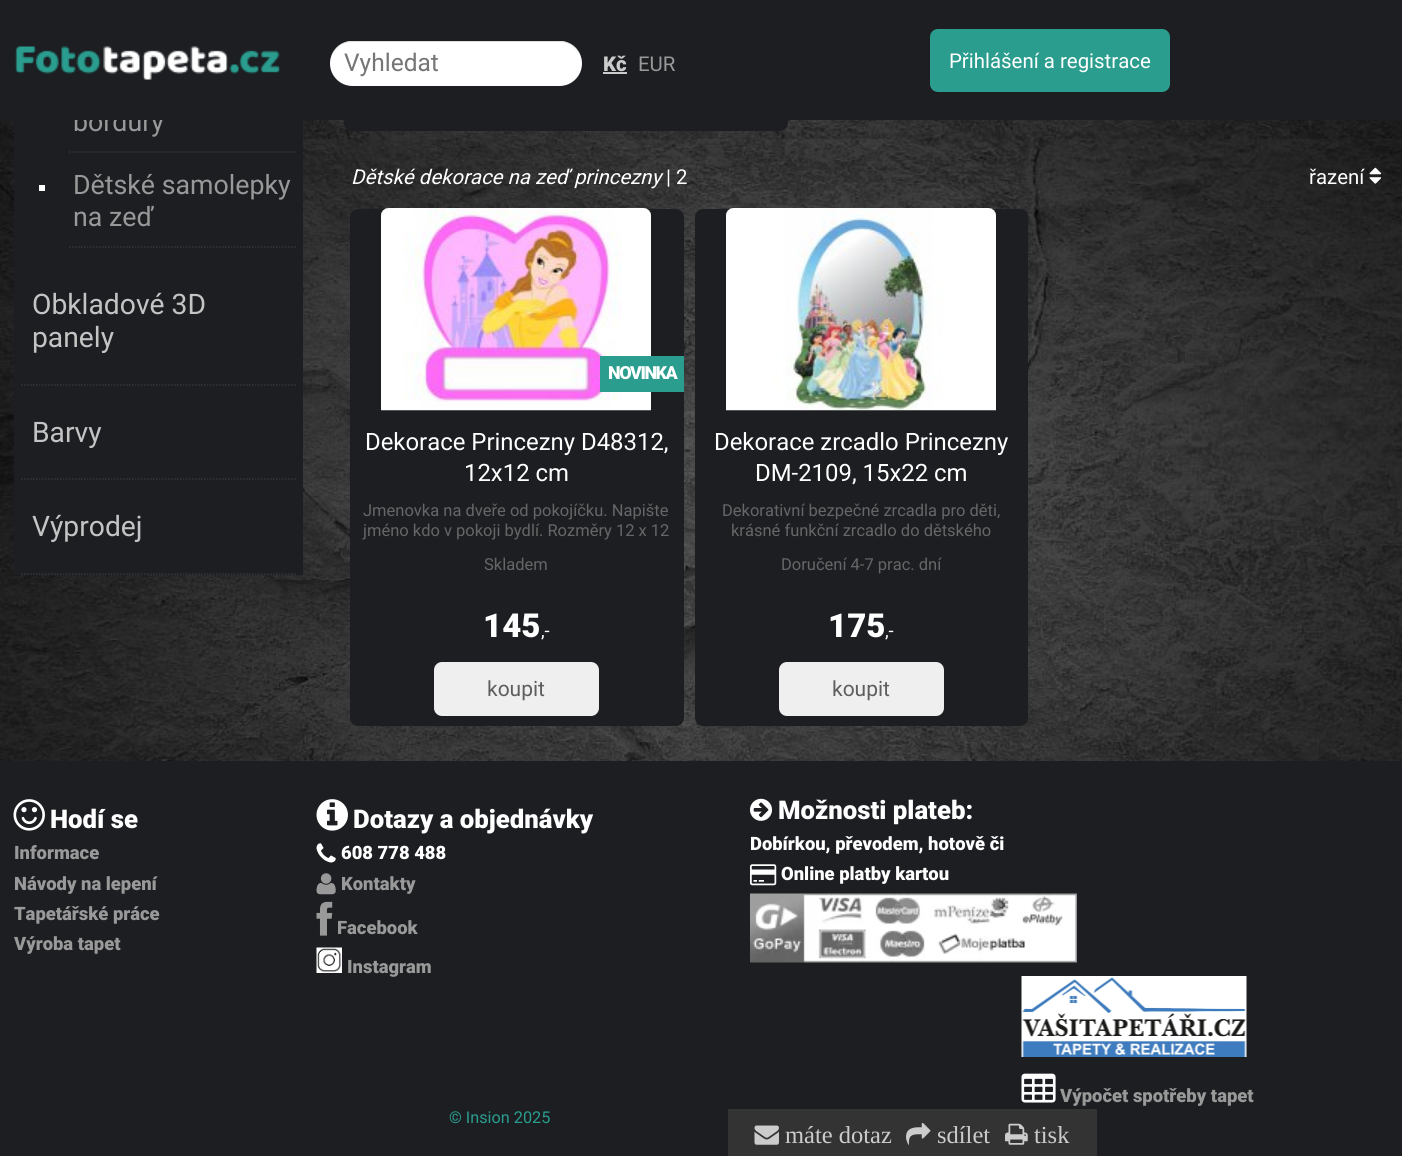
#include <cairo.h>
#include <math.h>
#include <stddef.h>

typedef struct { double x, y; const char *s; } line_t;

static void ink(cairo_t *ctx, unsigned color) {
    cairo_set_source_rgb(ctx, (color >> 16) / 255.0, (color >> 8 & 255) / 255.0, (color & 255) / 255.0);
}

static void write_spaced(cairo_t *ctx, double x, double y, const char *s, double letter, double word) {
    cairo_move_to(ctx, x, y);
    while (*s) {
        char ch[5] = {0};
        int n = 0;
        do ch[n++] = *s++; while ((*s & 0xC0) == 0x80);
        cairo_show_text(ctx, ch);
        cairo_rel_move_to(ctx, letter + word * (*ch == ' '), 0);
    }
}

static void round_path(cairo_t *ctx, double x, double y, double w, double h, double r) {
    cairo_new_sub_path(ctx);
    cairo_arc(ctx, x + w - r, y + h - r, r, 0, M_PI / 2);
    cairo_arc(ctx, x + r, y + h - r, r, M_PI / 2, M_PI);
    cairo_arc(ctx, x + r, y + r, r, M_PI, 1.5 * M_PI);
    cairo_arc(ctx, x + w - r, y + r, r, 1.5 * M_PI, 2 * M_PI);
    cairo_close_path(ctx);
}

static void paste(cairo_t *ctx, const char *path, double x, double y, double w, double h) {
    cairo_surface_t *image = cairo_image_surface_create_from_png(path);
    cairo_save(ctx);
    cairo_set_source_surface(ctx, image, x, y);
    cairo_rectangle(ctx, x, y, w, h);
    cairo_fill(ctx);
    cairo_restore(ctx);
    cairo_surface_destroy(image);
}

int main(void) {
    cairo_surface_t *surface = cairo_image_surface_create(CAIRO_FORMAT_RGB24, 1402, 1156);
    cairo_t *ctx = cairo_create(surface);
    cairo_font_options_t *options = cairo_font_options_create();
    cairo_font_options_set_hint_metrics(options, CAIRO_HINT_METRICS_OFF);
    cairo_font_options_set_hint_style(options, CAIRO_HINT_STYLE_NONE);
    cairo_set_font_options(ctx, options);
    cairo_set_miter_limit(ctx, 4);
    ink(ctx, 0xFFFFFF);
    cairo_paint(ctx);
    paste(ctx, "media/1.png", 0, 120, 1402, 641);
    ink(ctx, 0x1C1E22);
    cairo_rectangle(ctx, 14, 120, 289, 455);
    cairo_fill(ctx);
    cairo_select_font_face(ctx, "Roboto", CAIRO_FONT_SLANT_NORMAL, CAIRO_FONT_WEIGHT_NORMAL);
    cairo_set_font_size(ctx, 26.75);
    ink(ctx, 0x999999);
    cairo_move_to(ctx, 73, 131);
    cairo_show_text(ctx, "bordury");
    ink(ctx, 0x1C1E22);
    round_path(ctx, 344, -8, 444, 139, 8);
    cairo_fill(ctx);
    cairo_rectangle(ctx, 0, 0, 1402, 120);
    cairo_fill(ctx);
    paste(ctx, "media/2.png", 15, 46, 265, 34);
    ink(ctx, 0xFFFFFF);
    round_path(ctx, 330, 41, 252, 45, 22.5);
    cairo_fill(ctx);
    ink(ctx, 0xDDDDDD);
    cairo_new_path(ctx);
    cairo_move_to(ctx, 352, 42);
    cairo_line_to(ctx, 560, 42);
    cairo_curve_to(ctx, 572, 42, 582, 52, 582, 64);
    cairo_curve_to(ctx, 582, 51, 572, 41, 560, 41);
    cairo_line_to(ctx, 352, 41);
    cairo_curve_to(ctx, 340, 41, 330, 51, 330, 64);
    cairo_curve_to(ctx, 330, 52, 340, 42, 352, 42);
    cairo_close_path(ctx);
    cairo_fill(ctx);
    cairo_set_font_size(ctx, 24.5);
    ink(ctx, 0x757575);
    cairo_move_to(ctx, 344, 71);
    cairo_show_text(ctx, "Vyhledat");
    cairo_select_font_face(ctx, "Roboto Black", CAIRO_FONT_SLANT_NORMAL, CAIRO_FONT_WEIGHT_NORMAL);
    cairo_set_font_size(ctx, 20.4);
    ink(ctx, 0xCCCCCC);
    cairo_move_to(ctx, 603, 71);
    cairo_show_text(ctx, "Kč");
    cairo_rectangle(ctx, 603, 72, 24, 2);
    cairo_fill(ctx);
    cairo_select_font_face(ctx, "Roboto", CAIRO_FONT_SLANT_NORMAL, CAIRO_FONT_WEIGHT_NORMAL);
    ink(ctx, 0x999999);
    cairo_move_to(ctx, 638, 71);
    cairo_show_text(ctx, "EUR");
    ink(ctx, 0x2A9D8F);
    round_path(ctx, 930, 29, 240, 63, 8);
    cairo_fill(ctx);
    ink(ctx, 0xFFFFFF);
    cairo_move_to(ctx, 949, 68);
    cairo_show_text(ctx, "Přihlášení a registrace");
    cairo_new_path(ctx);
    cairo_move_to(ctx, 69, 152);
    cairo_line_to(ctx, 295.5, 152);
    ink(ctx, 0x35373A);
    cairo_set_line_width(ctx, 1.5);
    cairo_set_dash(ctx, (double[]){1.5, 1.5}, 2, 0);
    cairo_stroke(ctx);
    ink(ctx, 0xFFFFFF);
    cairo_rectangle(ctx, 39, 185, 6, 6);
    cairo_fill(ctx);
    cairo_new_path(ctx);
    cairo_move_to(ctx, 69, 247);
    cairo_line_to(ctx, 295.5, 247);
    ink(ctx, 0x35373A);
    cairo_stroke(ctx);
    cairo_set_font_size(ctx, 26.75);
    ink(ctx, 0x999999);
    cairo_move_to(ctx, 73, 194);
    cairo_show_text(ctx, "Dětské samolepky");
    cairo_move_to(ctx, 73, 226);
    cairo_show_text(ctx, "na zeď");
    cairo_new_path(ctx);
    cairo_move_to(ctx, 21, 385);
    cairo_line_to(ctx, 295.5, 385);
    ink(ctx, 0x35373A);
    cairo_stroke(ctx);
    cairo_set_font_size(ctx, 28.25);
    ink(ctx, 0xC4C4C4);
    cairo_move_to(ctx, 32, 314);
    cairo_show_text(ctx, "Obkladové 3D");
    cairo_move_to(ctx, 32, 347);
    cairo_show_text(ctx, "panely");
    cairo_new_path(ctx);
    cairo_move_to(ctx, 21, 479);
    cairo_line_to(ctx, 295.5, 479);
    ink(ctx, 0x35373A);
    cairo_stroke(ctx);
    ink(ctx, 0xC4C4C4);
    cairo_move_to(ctx, 32, 442);
    cairo_show_text(ctx, "Barvy");
    cairo_new_path(ctx);
    cairo_move_to(ctx, 21, 574);
    cairo_line_to(ctx, 295.5, 574);
    ink(ctx, 0x35373A);
    cairo_stroke(ctx);
    ink(ctx, 0xC4C4C4);
    cairo_move_to(ctx, 32, 536);
    cairo_show_text(ctx, "Výprodej");
    cairo_select_font_face(ctx, "Roboto", CAIRO_FONT_SLANT_ITALIC, CAIRO_FONT_WEIGHT_NORMAL);
    cairo_set_font_size(ctx, 20.4);
    ink(ctx, 0xFFFFFF);
    cairo_move_to(ctx, 351, 184);
    cairo_show_text(ctx, "Dětské dekorace na zeď princezny");
    cairo_select_font_face(ctx, "Roboto", CAIRO_FONT_SLANT_NORMAL, CAIRO_FONT_WEIGHT_NORMAL);
    cairo_move_to(ctx, 666, 184);
    cairo_show_text(ctx, "| 2");
    cairo_move_to(ctx, 1309, 184);
    cairo_show_text(ctx, "řazení");
    paste(ctx, "media/3.png", 1369, 167, 13, 17);
    ink(ctx, 0x1C1E22);
    round_path(ctx, 350, 209, 334, 517, 8);
    cairo_fill(ctx);
    paste(ctx, "media/4.png", 381, 208, 270, 203);
    ink(ctx, 0x2A9D8F);
    cairo_rectangle(ctx, 600, 356, 84, 36);
    cairo_fill(ctx);
    cairo_select_font_face(ctx, "Roboto Black", CAIRO_FONT_SLANT_NORMAL, CAIRO_FONT_WEIGHT_NORMAL);
    cairo_set_font_size(ctx, 18);
    ink(ctx, 0xFFFFFF);
    write_spaced(ctx, 608, 379, "NOVINKA", -1.5, 0);
    cairo_select_font_face(ctx, "Roboto", CAIRO_FONT_SLANT_NORMAL, CAIRO_FONT_WEIGHT_NORMAL);
    cairo_set_font_size(ctx, 23.9);
    cairo_move_to(ctx, 365, 450);
    cairo_show_text(ctx, "Dekorace Princezny D48312,");
    cairo_move_to(ctx, 464, 481);
    cairo_show_text(ctx, "12x12 cm");
    cairo_set_font_size(ctx, 16.5);
    ink(ctx, 0x666666);
    {
        static const line_t items[] = {
            {363, 516, "Jmenovka na dveře od pokojíčku. Napište"},
            {363, 536, "jméno kdo v pokoji bydlí. Rozměry 12 x 12"},
            {484, 570, "Skladem"},
        };
        for (size_t i = 0; i < sizeof items / sizeof *items; i++) {
            cairo_move_to(ctx, items[i].x, items[i].y);
            cairo_show_text(ctx, items[i].s);
        }
    }
    cairo_select_font_face(ctx, "Roboto Black", CAIRO_FONT_SLANT_NORMAL, CAIRO_FONT_WEIGHT_NORMAL);
    cairo_set_font_size(ctx, 33);
    ink(ctx, 0xFFFFFF);
    cairo_move_to(ctx, 483, 637);
    cairo_show_text(ctx, "145");
    cairo_select_font_face(ctx, "Roboto", CAIRO_FONT_SLANT_NORMAL, CAIRO_FONT_WEIGHT_NORMAL);
    cairo_set_font_size(ctx, 18.4);
    cairo_move_to(ctx, 541, 637);
    cairo_show_text(ctx, ",-");
    ink(ctx, 0xEFEFEF);
    round_path(ctx, 434, 662, 165, 54, 8);
    cairo_fill(ctx);
    cairo_set_font_size(ctx, 21);
    ink(ctx, 0x5E5E5E);
    cairo_move_to(ctx, 487, 696);
    cairo_show_text(ctx, "koupit");
    ink(ctx, 0x1C1E22);
    round_path(ctx, 695, 209, 333, 517, 8);
    cairo_fill(ctx);
    paste(ctx, "media/5.png", 726, 208, 270, 203);
    cairo_set_font_size(ctx, 23.9);
    ink(ctx, 0xFFFFFF);
    cairo_move_to(ctx, 714, 450);
    cairo_show_text(ctx, "Dekorace zrcadlo Princezny");
    cairo_move_to(ctx, 755, 481);
    cairo_show_text(ctx, "DM-2109, 15x22 cm");
    cairo_set_font_size(ctx, 16.5);
    ink(ctx, 0x666666);
    {
        static const line_t items[] = {
            {722, 516, "Dekorativní bezpečné zrcadla pro děti,"},
            {731, 536, "krásné funkční zrcadlo do dětského"},
            {781, 570, "Doručení 4-7 prac. dní"},
        };
        for (size_t i = 0; i < sizeof items / sizeof *items; i++) {
            cairo_move_to(ctx, items[i].x, items[i].y);
            cairo_show_text(ctx, items[i].s);
        }
    }
    cairo_select_font_face(ctx, "Roboto Black", CAIRO_FONT_SLANT_NORMAL, CAIRO_FONT_WEIGHT_NORMAL);
    cairo_set_font_size(ctx, 33);
    ink(ctx, 0xFFFFFF);
    cairo_move_to(ctx, 828, 637);
    cairo_show_text(ctx, "175");
    cairo_select_font_face(ctx, "Roboto", CAIRO_FONT_SLANT_NORMAL, CAIRO_FONT_WEIGHT_NORMAL);
    cairo_set_font_size(ctx, 18.4);
    cairo_move_to(ctx, 885, 637);
    cairo_show_text(ctx, ",-");
    ink(ctx, 0xEFEFEF);
    round_path(ctx, 779, 662, 165, 54, 8);
    cairo_fill(ctx);
    cairo_set_font_size(ctx, 21);
    ink(ctx, 0x5E5E5E);
    cairo_move_to(ctx, 832, 696);
    cairo_show_text(ctx, "koupit");
    ink(ctx, 0x1C1E22);
    cairo_rectangle(ctx, 0, 761, 1402, 395);
    cairo_fill(ctx);
    paste(ctx, "media/6.png", 13, 799, 32, 32);
    cairo_select_font_face(ctx, "Roboto Black", CAIRO_FONT_SLANT_NORMAL, CAIRO_FONT_WEIGHT_NORMAL);
    cairo_set_font_size(ctx, 25.75);
    ink(ctx, 0xFFFFFF);
    cairo_move_to(ctx, 50, 828);
    cairo_show_text(ctx, "Hodí se");
    cairo_set_font_size(ctx, 18.4);
    ink(ctx, 0x999999);
    {
        static const line_t items[] = {
            {14, 859, "Informace"},
            {14, 890, "Návody na lepení"},
            {14, 920, "Tapetářské práce"},
            {14, 950, "Výroba tapet"},
        };
        for (size_t i = 0; i < sizeof items / sizeof *items; i++) {
            cairo_move_to(ctx, items[i].x, items[i].y);
            cairo_show_text(ctx, items[i].s);
        }
    }
    paste(ctx, "media/7.png", 316, 799, 32, 32);
    cairo_set_font_size(ctx, 25.75);
    ink(ctx, 0xFFFFFF);
    cairo_move_to(ctx, 353, 828);
    cairo_show_text(ctx, "Dotazy a objednávky");
    paste(ctx, "media/8.png", 316, 843, 20, 20);
    cairo_set_font_size(ctx, 18.4);
    cairo_move_to(ctx, 341, 859);
    cairo_show_text(ctx, "608 778 488");
    paste(ctx, "media/9.png", 316, 873, 20, 22);
    ink(ctx, 0x999999);
    cairo_move_to(ctx, 341, 890);
    cairo_show_text(ctx, "Kontakty");
    paste(ctx, "media/10.png", 316, 901, 17, 35);
    cairo_move_to(ctx, 337, 934);
    cairo_show_text(ctx, "Facebook");
    paste(ctx, "media/11.png", 316, 947, 26, 26);
    cairo_move_to(ctx, 347, 973);
    cairo_show_text(ctx, "Instagram");
    paste(ctx, "media/12.png", 750, 798, 22, 23);
    cairo_set_font_size(ctx, 25.75);
    ink(ctx, 0xFFFFFF);
    cairo_move_to(ctx, 778, 819);
    cairo_show_text(ctx, "Možnosti plateb:");
    cairo_set_font_size(ctx, 18.4);
    cairo_move_to(ctx, 750, 850);
    cairo_show_text(ctx, "Dobírkou, převodem, hotově či");
    paste(ctx, "media/13.png", 750, 864, 27, 22);
    cairo_move_to(ctx, 781, 880);
    cairo_show_text(ctx, "Online platby kartou");
    paste(ctx, "media/14.png", 750, 893, 327, 70);
    paste(ctx, "media/15.png", 1021, 976, 226, 81);
    paste(ctx, "media/16.png", 1021, 1073, 35, 30);
    ink(ctx, 0x999999);
    cairo_move_to(ctx, 1060, 1102);
    cairo_show_text(ctx, "Výpočet spotřeby tapet");
    cairo_select_font_face(ctx, "Roboto", CAIRO_FONT_SLANT_NORMAL, CAIRO_FONT_WEIGHT_NORMAL);
    cairo_set_font_size(ctx, 16.25);
    ink(ctx, 0x2A9D8F);
    cairo_move_to(ctx, 449, 1123);
    cairo_show_text(ctx, "© Insion 2025");
    ink(ctx, 0x333333);
    cairo_rectangle(ctx, 728, 1109, 369, 47);
    cairo_fill(ctx);
    paste(ctx, "media/17.png", 754, 1125, 25, 20);
    cairo_select_font_face(ctx, "Liberation Serif", CAIRO_FONT_SLANT_NORMAL, CAIRO_FONT_WEIGHT_NORMAL);
    cairo_set_font_size(ctx, 24.5);
    ink(ctx, 0xCCCCCC);
    cairo_move_to(ctx, 785, 1143);
    cairo_show_text(ctx, "máte dotaz");
    paste(ctx, "media/18.png", 906, 1122, 25, 23);
    cairo_move_to(ctx, 937, 1143);
    cairo_show_text(ctx, "sdílet");
    paste(ctx, "media/19.png", 1005, 1123, 23, 22);
    cairo_move_to(ctx, 1034, 1143);
    cairo_show_text(ctx, "tisk");
    cairo_surface_write_to_png(surface, "image.png");
    cairo_font_options_destroy(options);
    cairo_destroy(ctx);
    cairo_surface_destroy(surface);
    return 0;
}
